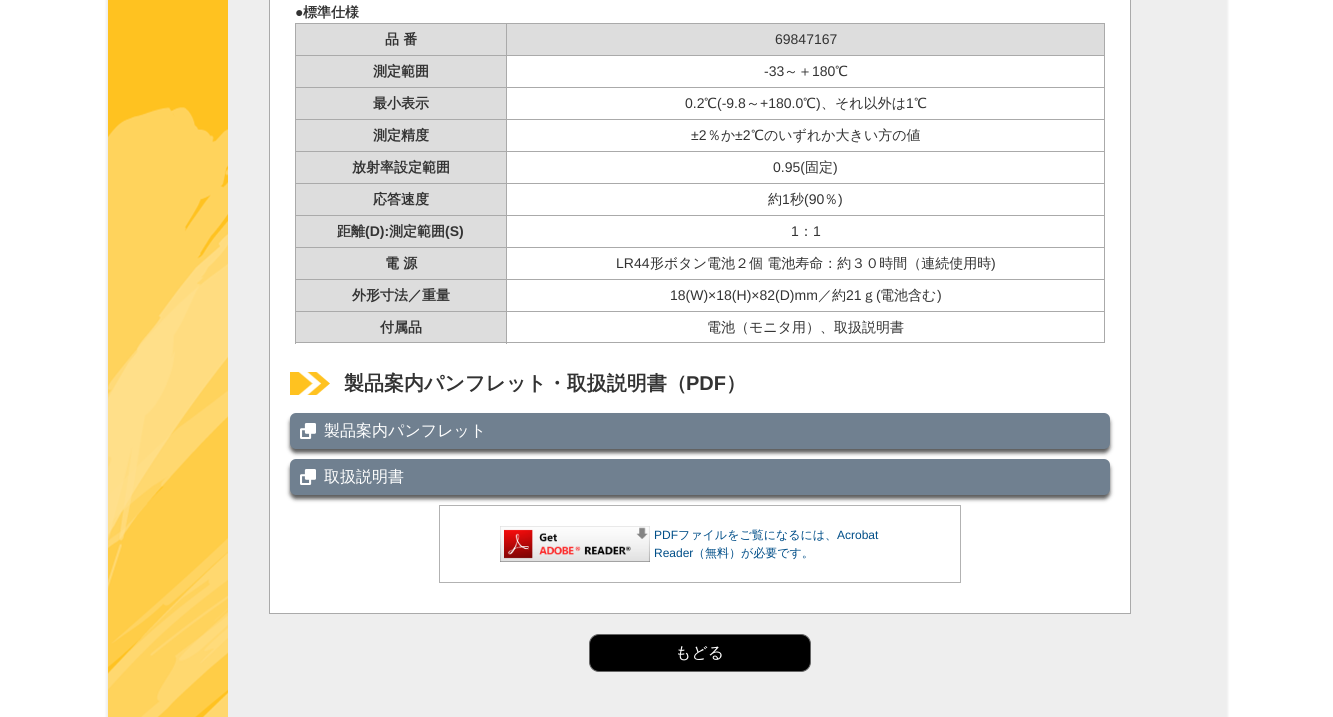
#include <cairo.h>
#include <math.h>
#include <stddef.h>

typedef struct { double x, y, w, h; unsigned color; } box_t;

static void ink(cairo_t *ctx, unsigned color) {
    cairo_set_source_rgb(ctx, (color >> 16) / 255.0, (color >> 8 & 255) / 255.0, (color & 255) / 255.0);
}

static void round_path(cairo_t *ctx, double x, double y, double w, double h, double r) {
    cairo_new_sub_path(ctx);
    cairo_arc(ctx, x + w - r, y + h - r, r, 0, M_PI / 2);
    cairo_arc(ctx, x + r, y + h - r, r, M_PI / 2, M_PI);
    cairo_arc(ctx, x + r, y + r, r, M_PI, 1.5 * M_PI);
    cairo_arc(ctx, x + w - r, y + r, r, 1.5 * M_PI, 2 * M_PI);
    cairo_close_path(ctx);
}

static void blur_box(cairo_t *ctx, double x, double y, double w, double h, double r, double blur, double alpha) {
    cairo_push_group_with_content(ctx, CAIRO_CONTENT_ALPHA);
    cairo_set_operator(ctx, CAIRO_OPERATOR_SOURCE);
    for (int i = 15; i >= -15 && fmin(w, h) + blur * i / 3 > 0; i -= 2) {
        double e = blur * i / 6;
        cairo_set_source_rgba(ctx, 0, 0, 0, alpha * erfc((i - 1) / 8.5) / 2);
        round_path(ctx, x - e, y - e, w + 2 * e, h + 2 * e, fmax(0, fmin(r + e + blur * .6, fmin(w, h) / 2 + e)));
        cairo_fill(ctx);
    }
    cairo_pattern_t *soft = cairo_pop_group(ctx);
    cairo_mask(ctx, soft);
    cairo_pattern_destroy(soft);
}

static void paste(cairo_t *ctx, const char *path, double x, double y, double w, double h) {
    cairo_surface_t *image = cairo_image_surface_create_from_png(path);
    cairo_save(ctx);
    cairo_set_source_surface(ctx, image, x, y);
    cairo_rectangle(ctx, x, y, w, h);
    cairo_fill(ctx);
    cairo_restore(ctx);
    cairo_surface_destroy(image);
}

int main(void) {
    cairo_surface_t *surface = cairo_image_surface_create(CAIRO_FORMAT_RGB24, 1333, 717);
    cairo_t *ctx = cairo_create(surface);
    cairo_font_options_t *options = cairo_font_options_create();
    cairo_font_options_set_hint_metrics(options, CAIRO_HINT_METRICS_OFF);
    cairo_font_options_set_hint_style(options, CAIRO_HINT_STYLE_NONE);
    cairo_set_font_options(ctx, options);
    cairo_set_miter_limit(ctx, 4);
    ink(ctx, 0xFFFFFF);
    cairo_paint(ctx);
    ink(ctx, 0xEEEEEE);
    blur_box(ctx, 106, -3, 1122, 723, 0, 1, 1);
    ink(ctx, 0xFFC220);
    cairo_rectangle(ctx, 108, 0, 120, 717);
    cairo_fill(ctx);
    paste(ctx, "media/1.png", 108, 107, 120, 610);
    ink(ctx, 0xFFFFFF);
    cairo_rectangle(ctx, 269.5, -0.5, 861, 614);
    cairo_fill_preserve(ctx);
    ink(ctx, 0xAAAAAA);
    cairo_set_line_width(ctx, 1);
    cairo_stroke(ctx);
    cairo_select_font_face(ctx, "Liberation Sans", CAIRO_FONT_SLANT_NORMAL, CAIRO_FONT_WEIGHT_BOLD);
    cairo_set_font_size(ctx, 14);
    ink(ctx, 0x333333);
    cairo_move_to(ctx, 295, 17);
    cairo_show_text(ctx, "●");
    cairo_select_font_face(ctx, "WenQuanYi Zen Hei", CAIRO_FONT_SLANT_NORMAL, CAIRO_FONT_WEIGHT_BOLD);
    cairo_move_to(ctx, 303, 17);
    cairo_show_text(ctx, "標準仕様");
    {
        static const box_t items[] = {
            {506, 55, 599, 1, 0xAAAAAA},
            {506, 87, 599, 1, 0xAAAAAA},
            {506, 119, 599, 1, 0xAAAAAA},
            {506, 151, 599, 1, 0xAAAAAA},
            {506, 183, 599, 1, 0xAAAAAA},
            {506, 215, 599, 1, 0xAAAAAA},
            {506, 247, 599, 1, 0xAAAAAA},
            {506, 279, 599, 1, 0xAAAAAA},
            {506, 311, 599, 1, 0xAAAAAA},
            {1104, 24, 1, 319, 0xAAAAAA},
            {506, 311, 1, 33, 0xAAAAAA},
            {295, 311, 212, 1, 0xAAAAAA},
            {295, 311, 1, 33, 0xAAAAAA},
            {295, 342, 810, 1, 0xAAAAAA},
            {296, 24, 808, 31, 0xDDDDDD},
            {506, 23, 599, 1, 0xAAAAAA},
            {506, 279, 1, 33, 0xAAAAAA},
            {295, 279, 212, 1, 0xAAAAAA},
            {506, 247, 1, 33, 0xAAAAAA},
            {295, 247, 212, 1, 0xAAAAAA},
            {506, 215, 1, 33, 0xAAAAAA},
            {295, 215, 212, 1, 0xAAAAAA},
            {506, 183, 1, 33, 0xAAAAAA},
            {295, 183, 212, 1, 0xAAAAAA},
            {506, 151, 1, 33, 0xAAAAAA},
            {295, 151, 212, 1, 0xAAAAAA},
            {506, 119, 1, 33, 0xAAAAAA},
            {295, 119, 212, 1, 0xAAAAAA},
            {506, 87, 1, 33, 0xAAAAAA},
            {295, 87, 212, 1, 0xAAAAAA},
            {506, 55, 1, 33, 0xAAAAAA},
            {295, 55, 212, 1, 0xAAAAAA},
            {506, 23, 1, 33, 0xAAAAAA},
            {295, 23, 212, 1, 0xAAAAAA},
            {295, 279, 1, 33, 0xAAAAAA},
            {295, 247, 1, 33, 0xAAAAAA},
            {295, 215, 1, 33, 0xAAAAAA},
            {295, 183, 1, 33, 0xAAAAAA},
            {295, 151, 1, 33, 0xAAAAAA},
            {295, 119, 1, 33, 0xAAAAAA},
            {295, 87, 1, 33, 0xAAAAAA},
            {295, 55, 1, 33, 0xAAAAAA},
            {295, 23, 1, 33, 0xAAAAAA},
        };
        for (size_t i = 0; i < sizeof items / sizeof *items; i++) {
            ink(ctx, items[i].color);
            cairo_rectangle(ctx, items[i].x, items[i].y, items[i].w, items[i].h);
            cairo_fill(ctx);
        }
    }
    ink(ctx, 0x333333);
    cairo_move_to(ctx, 385, 44);
    cairo_show_text(ctx, "品 番");
    cairo_select_font_face(ctx, "Liberation Sans", CAIRO_FONT_SLANT_NORMAL, CAIRO_FONT_WEIGHT_NORMAL);
    cairo_move_to(ctx, 775, 44);
    cairo_show_text(ctx, "69847167");
    ink(ctx, 0xDDDDDD);
    cairo_rectangle(ctx, 296, 56, 210, 31);
    cairo_fill(ctx);
    cairo_select_font_face(ctx, "WenQuanYi Zen Hei", CAIRO_FONT_SLANT_NORMAL, CAIRO_FONT_WEIGHT_BOLD);
    ink(ctx, 0x333333);
    cairo_move_to(ctx, 373, 76);
    cairo_show_text(ctx, "測定範囲");
    cairo_select_font_face(ctx, "Liberation Sans", CAIRO_FONT_SLANT_NORMAL, CAIRO_FONT_WEIGHT_NORMAL);
    cairo_move_to(ctx, 764, 76);
    cairo_show_text(ctx, "-33");
    cairo_select_font_face(ctx, "WenQuanYi Zen Hei Medium", CAIRO_FONT_SLANT_NORMAL, CAIRO_FONT_WEIGHT_NORMAL);
    cairo_move_to(ctx, 784, 76);
    cairo_show_text(ctx, "～＋");
    cairo_select_font_face(ctx, "Liberation Sans", CAIRO_FONT_SLANT_NORMAL, CAIRO_FONT_WEIGHT_NORMAL);
    cairo_move_to(ctx, 812, 76);
    cairo_show_text(ctx, "180");
    cairo_select_font_face(ctx, "WenQuanYi Zen Hei Medium", CAIRO_FONT_SLANT_NORMAL, CAIRO_FONT_WEIGHT_NORMAL);
    cairo_move_to(ctx, 835, 76);
    cairo_show_text(ctx, "℃");
    ink(ctx, 0xDDDDDD);
    cairo_rectangle(ctx, 296, 88, 210, 31);
    cairo_fill(ctx);
    cairo_select_font_face(ctx, "WenQuanYi Zen Hei", CAIRO_FONT_SLANT_NORMAL, CAIRO_FONT_WEIGHT_BOLD);
    ink(ctx, 0x333333);
    cairo_move_to(ctx, 373, 108);
    cairo_show_text(ctx, "最小表示");
    cairo_select_font_face(ctx, "Liberation Sans", CAIRO_FONT_SLANT_NORMAL, CAIRO_FONT_WEIGHT_NORMAL);
    cairo_move_to(ctx, 685, 108);
    cairo_show_text(ctx, "0.2");
    cairo_select_font_face(ctx, "WenQuanYi Zen Hei Medium", CAIRO_FONT_SLANT_NORMAL, CAIRO_FONT_WEIGHT_NORMAL);
    cairo_move_to(ctx, 704, 108);
    cairo_show_text(ctx, "℃");
    cairo_select_font_face(ctx, "Liberation Sans", CAIRO_FONT_SLANT_NORMAL, CAIRO_FONT_WEIGHT_NORMAL);
    cairo_move_to(ctx, 717, 108);
    cairo_show_text(ctx, "(-9.8");
    cairo_select_font_face(ctx, "WenQuanYi Zen Hei Medium", CAIRO_FONT_SLANT_NORMAL, CAIRO_FONT_WEIGHT_NORMAL);
    cairo_move_to(ctx, 746, 108);
    cairo_show_text(ctx, "～");
    cairo_select_font_face(ctx, "Liberation Sans", CAIRO_FONT_SLANT_NORMAL, CAIRO_FONT_WEIGHT_NORMAL);
    cairo_move_to(ctx, 760, 108);
    cairo_show_text(ctx, "+180.0");
    cairo_select_font_face(ctx, "WenQuanYi Zen Hei Medium", CAIRO_FONT_SLANT_NORMAL, CAIRO_FONT_WEIGHT_NORMAL);
    cairo_move_to(ctx, 803, 108);
    cairo_show_text(ctx, "℃");
    cairo_select_font_face(ctx, "Liberation Sans", CAIRO_FONT_SLANT_NORMAL, CAIRO_FONT_WEIGHT_NORMAL);
    cairo_move_to(ctx, 816, 108);
    cairo_show_text(ctx, ")");
    cairo_select_font_face(ctx, "WenQuanYi Zen Hei Medium", CAIRO_FONT_SLANT_NORMAL, CAIRO_FONT_WEIGHT_NORMAL);
    cairo_move_to(ctx, 821, 108);
    cairo_show_text(ctx, "、それ以外は");
    cairo_select_font_face(ctx, "Liberation Sans", CAIRO_FONT_SLANT_NORMAL, CAIRO_FONT_WEIGHT_NORMAL);
    cairo_move_to(ctx, 906, 108);
    cairo_show_text(ctx, "1");
    cairo_select_font_face(ctx, "WenQuanYi Zen Hei Medium", CAIRO_FONT_SLANT_NORMAL, CAIRO_FONT_WEIGHT_NORMAL);
    cairo_move_to(ctx, 914, 108);
    cairo_show_text(ctx, "℃");
    ink(ctx, 0xDDDDDD);
    cairo_rectangle(ctx, 296, 120, 210, 31);
    cairo_fill(ctx);
    cairo_select_font_face(ctx, "WenQuanYi Zen Hei", CAIRO_FONT_SLANT_NORMAL, CAIRO_FONT_WEIGHT_BOLD);
    ink(ctx, 0x333333);
    cairo_move_to(ctx, 373, 140);
    cairo_show_text(ctx, "測定精度");
    cairo_select_font_face(ctx, "Liberation Sans", CAIRO_FONT_SLANT_NORMAL, CAIRO_FONT_WEIGHT_NORMAL);
    cairo_move_to(ctx, 691, 140);
    cairo_show_text(ctx, "±2");
    cairo_select_font_face(ctx, "WenQuanYi Zen Hei Medium", CAIRO_FONT_SLANT_NORMAL, CAIRO_FONT_WEIGHT_NORMAL);
    cairo_move_to(ctx, 707, 140);
    cairo_show_text(ctx, "％か");
    cairo_select_font_face(ctx, "Liberation Sans", CAIRO_FONT_SLANT_NORMAL, CAIRO_FONT_WEIGHT_NORMAL);
    cairo_move_to(ctx, 735, 140);
    cairo_show_text(ctx, "±2");
    cairo_select_font_face(ctx, "WenQuanYi Zen Hei Medium", CAIRO_FONT_SLANT_NORMAL, CAIRO_FONT_WEIGHT_NORMAL);
    cairo_move_to(ctx, 751, 140);
    cairo_show_text(ctx, "℃のいずれか大きい方の値");
    ink(ctx, 0xDDDDDD);
    cairo_rectangle(ctx, 296, 152, 210, 31);
    cairo_fill(ctx);
    cairo_select_font_face(ctx, "WenQuanYi Zen Hei", CAIRO_FONT_SLANT_NORMAL, CAIRO_FONT_WEIGHT_BOLD);
    ink(ctx, 0x333333);
    cairo_move_to(ctx, 352, 172);
    cairo_show_text(ctx, "放射率設定範囲");
    cairo_select_font_face(ctx, "Liberation Sans", CAIRO_FONT_SLANT_NORMAL, CAIRO_FONT_WEIGHT_NORMAL);
    cairo_move_to(ctx, 773, 172);
    cairo_show_text(ctx, "0.95(");
    cairo_select_font_face(ctx, "WenQuanYi Zen Hei Medium", CAIRO_FONT_SLANT_NORMAL, CAIRO_FONT_WEIGHT_NORMAL);
    cairo_move_to(ctx, 805, 172);
    cairo_show_text(ctx, "固定");
    cairo_select_font_face(ctx, "Liberation Sans", CAIRO_FONT_SLANT_NORMAL, CAIRO_FONT_WEIGHT_NORMAL);
    cairo_move_to(ctx, 833, 172);
    cairo_show_text(ctx, ")");
    ink(ctx, 0xDDDDDD);
    cairo_rectangle(ctx, 296, 184, 210, 31);
    cairo_fill(ctx);
    cairo_select_font_face(ctx, "WenQuanYi Zen Hei", CAIRO_FONT_SLANT_NORMAL, CAIRO_FONT_WEIGHT_BOLD);
    ink(ctx, 0x333333);
    cairo_move_to(ctx, 373, 204);
    cairo_show_text(ctx, "応答速度");
    cairo_select_font_face(ctx, "WenQuanYi Zen Hei Medium", CAIRO_FONT_SLANT_NORMAL, CAIRO_FONT_WEIGHT_NORMAL);
    cairo_move_to(ctx, 768, 204);
    cairo_show_text(ctx, "約");
    cairo_select_font_face(ctx, "Liberation Sans", CAIRO_FONT_SLANT_NORMAL, CAIRO_FONT_WEIGHT_NORMAL);
    cairo_move_to(ctx, 782, 204);
    cairo_show_text(ctx, "1");
    cairo_select_font_face(ctx, "WenQuanYi Zen Hei Medium", CAIRO_FONT_SLANT_NORMAL, CAIRO_FONT_WEIGHT_NORMAL);
    cairo_move_to(ctx, 790, 204);
    cairo_show_text(ctx, "秒");
    cairo_select_font_face(ctx, "Liberation Sans", CAIRO_FONT_SLANT_NORMAL, CAIRO_FONT_WEIGHT_NORMAL);
    cairo_move_to(ctx, 804, 204);
    cairo_show_text(ctx, "(90");
    cairo_select_font_face(ctx, "WenQuanYi Zen Hei Medium", CAIRO_FONT_SLANT_NORMAL, CAIRO_FONT_WEIGHT_NORMAL);
    cairo_move_to(ctx, 824, 204);
    cairo_show_text(ctx, "％");
    cairo_select_font_face(ctx, "Liberation Sans", CAIRO_FONT_SLANT_NORMAL, CAIRO_FONT_WEIGHT_NORMAL);
    cairo_move_to(ctx, 838, 204);
    cairo_show_text(ctx, ")");
    ink(ctx, 0xDDDDDD);
    cairo_rectangle(ctx, 296, 216, 210, 31);
    cairo_fill(ctx);
    cairo_select_font_face(ctx, "WenQuanYi Zen Hei", CAIRO_FONT_SLANT_NORMAL, CAIRO_FONT_WEIGHT_BOLD);
    ink(ctx, 0x333333);
    cairo_move_to(ctx, 337, 236);
    cairo_show_text(ctx, "距離");
    cairo_select_font_face(ctx, "Liberation Sans", CAIRO_FONT_SLANT_NORMAL, CAIRO_FONT_WEIGHT_BOLD);
    cairo_move_to(ctx, 365, 236);
    cairo_show_text(ctx, "(D):");
    cairo_select_font_face(ctx, "WenQuanYi Zen Hei", CAIRO_FONT_SLANT_NORMAL, CAIRO_FONT_WEIGHT_BOLD);
    cairo_move_to(ctx, 389, 236);
    cairo_show_text(ctx, "測定範囲");
    cairo_select_font_face(ctx, "Liberation Sans", CAIRO_FONT_SLANT_NORMAL, CAIRO_FONT_WEIGHT_BOLD);
    cairo_move_to(ctx, 445, 236);
    cairo_show_text(ctx, "(S)");
    cairo_select_font_face(ctx, "Liberation Sans", CAIRO_FONT_SLANT_NORMAL, CAIRO_FONT_WEIGHT_NORMAL);
    cairo_move_to(ctx, 791, 236);
    cairo_show_text(ctx, "1");
    cairo_select_font_face(ctx, "WenQuanYi Zen Hei Medium", CAIRO_FONT_SLANT_NORMAL, CAIRO_FONT_WEIGHT_NORMAL);
    cairo_move_to(ctx, 799, 236);
    cairo_show_text(ctx, "：");
    cairo_select_font_face(ctx, "Liberation Sans", CAIRO_FONT_SLANT_NORMAL, CAIRO_FONT_WEIGHT_NORMAL);
    cairo_move_to(ctx, 813, 236);
    cairo_show_text(ctx, "1");
    ink(ctx, 0xDDDDDD);
    cairo_rectangle(ctx, 296, 248, 210, 31);
    cairo_fill(ctx);
    cairo_select_font_face(ctx, "WenQuanYi Zen Hei", CAIRO_FONT_SLANT_NORMAL, CAIRO_FONT_WEIGHT_BOLD);
    ink(ctx, 0x333333);
    cairo_move_to(ctx, 385, 268);
    cairo_show_text(ctx, "電 源");
    cairo_select_font_face(ctx, "Liberation Sans", CAIRO_FONT_SLANT_NORMAL, CAIRO_FONT_WEIGHT_NORMAL);
    cairo_move_to(ctx, 616, 268);
    cairo_show_text(ctx, "LR44");
    cairo_select_font_face(ctx, "WenQuanYi Zen Hei Medium", CAIRO_FONT_SLANT_NORMAL, CAIRO_FONT_WEIGHT_NORMAL);
    cairo_move_to(ctx, 650, 268);
    cairo_show_text(ctx, "形ボタン電池２個 電池寿命：約３０時間（連続使用時");
    cairo_select_font_face(ctx, "Liberation Sans", CAIRO_FONT_SLANT_NORMAL, CAIRO_FONT_WEIGHT_NORMAL);
    cairo_move_to(ctx, 991, 268);
    cairo_show_text(ctx, ")");
    ink(ctx, 0xDDDDDD);
    cairo_rectangle(ctx, 296, 280, 210, 31);
    cairo_fill(ctx);
    cairo_select_font_face(ctx, "WenQuanYi Zen Hei", CAIRO_FONT_SLANT_NORMAL, CAIRO_FONT_WEIGHT_BOLD);
    ink(ctx, 0x333333);
    cairo_move_to(ctx, 352, 300);
    cairo_show_text(ctx, "外形寸法／重量");
    cairo_select_font_face(ctx, "Liberation Sans", CAIRO_FONT_SLANT_NORMAL, CAIRO_FONT_WEIGHT_NORMAL);
    cairo_move_to(ctx, 670, 300);
    cairo_show_text(ctx, "18(W)×18(H)×82(D)mm");
    cairo_select_font_face(ctx, "WenQuanYi Zen Hei Medium", CAIRO_FONT_SLANT_NORMAL, CAIRO_FONT_WEIGHT_NORMAL);
    cairo_move_to(ctx, 818, 300);
    cairo_show_text(ctx, "／約");
    cairo_select_font_face(ctx, "Liberation Sans", CAIRO_FONT_SLANT_NORMAL, CAIRO_FONT_WEIGHT_NORMAL);
    cairo_move_to(ctx, 846, 300);
    cairo_show_text(ctx, "21");
    cairo_select_font_face(ctx, "WenQuanYi Zen Hei Medium", CAIRO_FONT_SLANT_NORMAL, CAIRO_FONT_WEIGHT_NORMAL);
    cairo_move_to(ctx, 862, 300);
    cairo_show_text(ctx, "ｇ");
    cairo_select_font_face(ctx, "Liberation Sans", CAIRO_FONT_SLANT_NORMAL, CAIRO_FONT_WEIGHT_NORMAL);
    cairo_move_to(ctx, 876, 300);
    cairo_show_text(ctx, "(");
    cairo_select_font_face(ctx, "WenQuanYi Zen Hei Medium", CAIRO_FONT_SLANT_NORMAL, CAIRO_FONT_WEIGHT_NORMAL);
    cairo_move_to(ctx, 880, 300);
    cairo_show_text(ctx, "電池含む");
    cairo_select_font_face(ctx, "Liberation Sans", CAIRO_FONT_SLANT_NORMAL, CAIRO_FONT_WEIGHT_NORMAL);
    cairo_move_to(ctx, 937, 300);
    cairo_show_text(ctx, ")");
    ink(ctx, 0xDDDDDD);
    cairo_rectangle(ctx, 296, 312, 210, 30);
    cairo_fill(ctx);
    cairo_select_font_face(ctx, "WenQuanYi Zen Hei", CAIRO_FONT_SLANT_NORMAL, CAIRO_FONT_WEIGHT_BOLD);
    ink(ctx, 0x333333);
    cairo_move_to(ctx, 380, 332);
    cairo_show_text(ctx, "付属品");
    cairo_select_font_face(ctx, "WenQuanYi Zen Hei Medium", CAIRO_FONT_SLANT_NORMAL, CAIRO_FONT_WEIGHT_NORMAL);
    cairo_move_to(ctx, 707, 332);
    cairo_show_text(ctx, "電池（モニタ用）、取扱説明書");
    paste(ctx, "media/2.png", 290, 372, 40, 23);
    cairo_select_font_face(ctx, "WenQuanYi Zen Hei", CAIRO_FONT_SLANT_NORMAL, CAIRO_FONT_WEIGHT_BOLD);
    cairo_set_font_size(ctx, 20);
    cairo_move_to(ctx, 344, 390);
    cairo_show_text(ctx, "製品案内パンフレット・取扱説明書（");
    cairo_select_font_face(ctx, "Liberation Sans", CAIRO_FONT_SLANT_NORMAL, CAIRO_FONT_WEIGHT_BOLD);
    cairo_move_to(ctx, 686, 390);
    cairo_show_text(ctx, "PDF");
    cairo_select_font_face(ctx, "WenQuanYi Zen Hei", CAIRO_FONT_SLANT_NORMAL, CAIRO_FONT_WEIGHT_BOLD);
    cairo_move_to(ctx, 726, 390);
    cairo_show_text(ctx, "）");
    ink(ctx, 0x333333);
    blur_box(ctx, 290, 417, 820, 36, 6, 2, 0.8);
    ink(ctx, 0x708090);
    round_path(ctx, 290, 413, 820, 36, 6);
    cairo_fill(ctx);
    paste(ctx, "media/3.png", 300, 423, 16, 16);
    cairo_select_font_face(ctx, "WenQuanYi Zen Hei Medium", CAIRO_FONT_SLANT_NORMAL, CAIRO_FONT_WEIGHT_NORMAL);
    cairo_set_font_size(ctx, 16);
    ink(ctx, 0xFFFFFF);
    cairo_move_to(ctx, 324, 436);
    cairo_show_text(ctx, "製品案内パンフレット");
    ink(ctx, 0x333333);
    blur_box(ctx, 290, 463, 820, 36, 6, 2, 0.8);
    ink(ctx, 0x708090);
    round_path(ctx, 290, 459, 820, 36, 6);
    cairo_fill(ctx);
    paste(ctx, "media/3.png", 300, 469, 16, 16);
    ink(ctx, 0xFFFFFF);
    cairo_move_to(ctx, 324, 482);
    cairo_show_text(ctx, "取扱説明書");
    cairo_rectangle(ctx, 439.5, 505.5, 521, 77);
    ink(ctx, 0xB2B2B2);
    cairo_stroke(ctx);
    paste(ctx, "media/4.png", 500, 526, 150, 36);
    cairo_select_font_face(ctx, "Liberation Sans", CAIRO_FONT_SLANT_NORMAL, CAIRO_FONT_WEIGHT_NORMAL);
    cairo_set_font_size(ctx, 12);
    ink(ctx, 0x004E88);
    cairo_move_to(ctx, 654, 539);
    cairo_show_text(ctx, "PDF");
    cairo_select_font_face(ctx, "WenQuanYi Zen Hei Medium", CAIRO_FONT_SLANT_NORMAL, CAIRO_FONT_WEIGHT_NORMAL);
    cairo_move_to(ctx, 678, 539);
    cairo_show_text(ctx, "ファイルをご覧になるには、");
    cairo_select_font_face(ctx, "Liberation Sans", CAIRO_FONT_SLANT_NORMAL, CAIRO_FONT_WEIGHT_NORMAL);
    cairo_move_to(ctx, 837, 539);
    cairo_show_text(ctx, "Acrobat");
    cairo_move_to(ctx, 654, 557);
    cairo_show_text(ctx, "Reader");
    cairo_select_font_face(ctx, "WenQuanYi Zen Hei Medium", CAIRO_FONT_SLANT_NORMAL, CAIRO_FONT_WEIGHT_NORMAL);
    cairo_move_to(ctx, 693, 557);
    cairo_show_text(ctx, "（無料）が必要です。");
    ink(ctx, 0x000000);
    round_path(ctx, 589.5, 634.5, 221, 37, 9.5);
    cairo_fill_preserve(ctx);
    ink(ctx, 0x666666);
    cairo_stroke(ctx);
    cairo_set_font_size(ctx, 16);
    ink(ctx, 0xFFFFFF);
    cairo_move_to(ctx, 675, 658);
    cairo_show_text(ctx, "もどる");
    cairo_surface_write_to_png(surface, "image.png");
    cairo_font_options_destroy(options);
    cairo_destroy(ctx);
    cairo_surface_destroy(surface);
    return 0;
}
